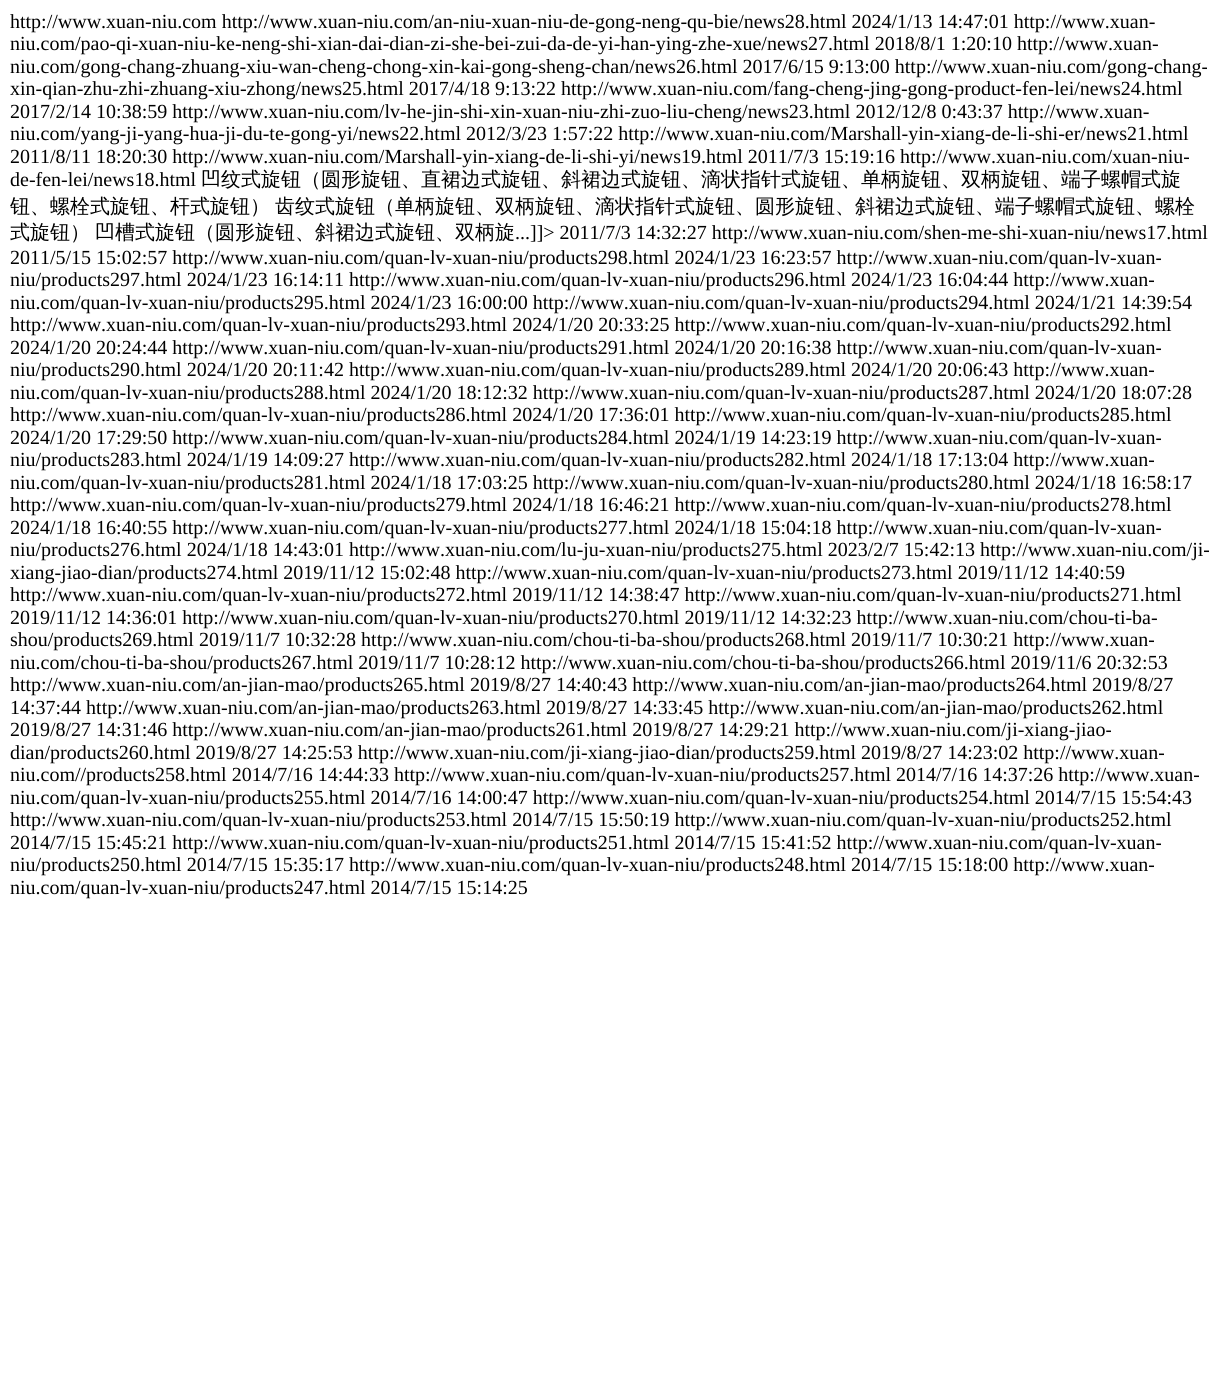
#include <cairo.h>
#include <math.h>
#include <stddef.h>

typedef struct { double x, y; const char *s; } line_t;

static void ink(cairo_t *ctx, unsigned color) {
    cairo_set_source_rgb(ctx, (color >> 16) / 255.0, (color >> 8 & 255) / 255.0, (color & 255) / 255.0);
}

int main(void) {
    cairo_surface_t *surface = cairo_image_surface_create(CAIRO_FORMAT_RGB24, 1219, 1389);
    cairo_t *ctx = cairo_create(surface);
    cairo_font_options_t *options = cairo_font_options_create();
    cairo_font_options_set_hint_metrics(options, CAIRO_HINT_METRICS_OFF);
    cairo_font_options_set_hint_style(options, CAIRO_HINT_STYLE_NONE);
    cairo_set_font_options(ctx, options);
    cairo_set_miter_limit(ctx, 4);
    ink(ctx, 0xFFFFFF);
    cairo_paint(ctx);
    cairo_select_font_face(ctx, "Liberation Serif", CAIRO_FONT_SLANT_NORMAL, CAIRO_FONT_WEIGHT_NORMAL);
    cairo_set_font_size(ctx, 20);
    ink(ctx, 0x000000);
    {
        static const line_t items[] = {
            {10, 28, "http://www.xuan-niu.com http://www.xuan-niu.com/an-niu-xuan-niu-de-gong-neng-qu-bie/news28.html 2024/1/13 14:47:01 http://www.xuan-"},
            {10, 50, "niu.com/pao-qi-xuan-niu-ke-neng-shi-xian-dai-dian-zi-she-bei-zui-da-de-yi-han-ying-zhe-xue/news27.html 2018/8/1 1:20:10 http://www.xuan-"},
            {10, 73, "niu.com/gong-chang-zhuang-xiu-wan-cheng-chong-xin-kai-gong-sheng-chan/news26.html 2017/6/15 9:13:00 http://www.xuan-niu.com/gong-chang-"},
            {10, 95, "xin-qian-zhu-zhi-zhuang-xiu-zhong/news25.html 2017/4/18 9:13:22 http://www.xuan-niu.com/fang-cheng-jing-gong-product-fen-lei/news24.html"},
            {10, 118, "2017/2/14 10:38:59 http://www.xuan-niu.com/lv-he-jin-shi-xin-xuan-niu-zhi-zuo-liu-cheng/news23.html 2012/12/8 0:43:37 http://www.xuan-"},
            {10, 140, "niu.com/yang-ji-yang-hua-ji-du-te-gong-yi/news22.html 2012/3/23 1:57:22 http://www.xuan-niu.com/Marshall-yin-xiang-de-li-shi-er/news21.html"},
            {10, 163, "2011/8/11 18:20:30 http://www.xuan-niu.com/Marshall-yin-xiang-de-li-shi-yi/news19.html 2011/7/3 15:19:16 http://www.xuan-niu.com/xuan-niu-"},
            {10, 186, "de-fen-lei/news18.html"},
        };
        for (size_t i = 0; i < sizeof items / sizeof *items; i++) {
            cairo_move_to(ctx, items[i].x, items[i].y);
            cairo_show_text(ctx, items[i].s);
        }
    }
    cairo_select_font_face(ctx, "WenQuanYi Zen Hei Medium", CAIRO_FONT_SLANT_NORMAL, CAIRO_FONT_WEIGHT_NORMAL);
    {
        static const line_t items[] = {
            {201, 186, "凹纹式旋钮（圆形旋钮、直裙边式旋钮、斜裙边式旋钮、滴状指针式旋钮、单柄旋钮、双柄旋钮、端子螺帽式旋"},
            {10, 213, "钮、螺栓式旋钮、杆式旋钮）"},
            {275, 213, "齿纹式旋钮（单柄旋钮、双柄旋钮、滴状指针式旋钮、圆形旋钮、斜裙边式旋钮、端子螺帽式旋钮、螺栓"},
            {10, 239, "式旋钮）"},
            {95, 239, "凹槽式旋钮（圆形旋钮、斜裙边式旋钮、双柄旋"},
        };
        for (size_t i = 0; i < sizeof items / sizeof *items; i++) {
            cairo_move_to(ctx, items[i].x, items[i].y);
            cairo_show_text(ctx, items[i].s);
        }
    }
    cairo_select_font_face(ctx, "Liberation Serif", CAIRO_FONT_SLANT_NORMAL, CAIRO_FONT_WEIGHT_NORMAL);
    {
        static const line_t items[] = {
            {515, 239, "...]]> 2011/7/3 14:32:27 http://www.xuan-niu.com/shen-me-shi-xuan-niu/news17.html"},
            {10, 264, "2011/5/15 15:02:57 http://www.xuan-niu.com/quan-lv-xuan-niu/products298.html 2024/1/23 16:23:57 http://www.xuan-niu.com/quan-lv-xuan-"},
            {10, 286, "niu/products297.html 2024/1/23 16:14:11 http://www.xuan-niu.com/quan-lv-xuan-niu/products296.html 2024/1/23 16:04:44 http://www.xuan-"},
            {10, 309, "niu.com/quan-lv-xuan-niu/products295.html 2024/1/23 16:00:00 http://www.xuan-niu.com/quan-lv-xuan-niu/products294.html 2024/1/21 14:39:54"},
            {10, 331, "http://www.xuan-niu.com/quan-lv-xuan-niu/products293.html 2024/1/20 20:33:25 http://www.xuan-niu.com/quan-lv-xuan-niu/products292.html"},
            {10, 354, "2024/1/20 20:24:44 http://www.xuan-niu.com/quan-lv-xuan-niu/products291.html 2024/1/20 20:16:38 http://www.xuan-niu.com/quan-lv-xuan-"},
            {10, 376, "niu/products290.html 2024/1/20 20:11:42 http://www.xuan-niu.com/quan-lv-xuan-niu/products289.html 2024/1/20 20:06:43 http://www.xuan-"},
            {10, 399, "niu.com/quan-lv-xuan-niu/products288.html 2024/1/20 18:12:32 http://www.xuan-niu.com/quan-lv-xuan-niu/products287.html 2024/1/20 18:07:28"},
            {10, 421, "http://www.xuan-niu.com/quan-lv-xuan-niu/products286.html 2024/1/20 17:36:01 http://www.xuan-niu.com/quan-lv-xuan-niu/products285.html"},
            {10, 444, "2024/1/20 17:29:50 http://www.xuan-niu.com/quan-lv-xuan-niu/products284.html 2024/1/19 14:23:19 http://www.xuan-niu.com/quan-lv-xuan-"},
            {10, 466, "niu/products283.html 2024/1/19 14:09:27 http://www.xuan-niu.com/quan-lv-xuan-niu/products282.html 2024/1/18 17:13:04 http://www.xuan-"},
            {10, 489, "niu.com/quan-lv-xuan-niu/products281.html 2024/1/18 17:03:25 http://www.xuan-niu.com/quan-lv-xuan-niu/products280.html 2024/1/18 16:58:17"},
            {10, 511, "http://www.xuan-niu.com/quan-lv-xuan-niu/products279.html 2024/1/18 16:46:21 http://www.xuan-niu.com/quan-lv-xuan-niu/products278.html"},
            {10, 534, "2024/1/18 16:40:55 http://www.xuan-niu.com/quan-lv-xuan-niu/products277.html 2024/1/18 15:04:18 http://www.xuan-niu.com/quan-lv-xuan-"},
            {10, 556, "niu/products276.html 2024/1/18 14:43:01 http://www.xuan-niu.com/lu-ju-xuan-niu/products275.html 2023/2/7 15:42:13 http://www.xuan-niu.com/ji-"},
            {10, 579, "xiang-jiao-dian/products274.html 2019/11/12 15:02:48 http://www.xuan-niu.com/quan-lv-xuan-niu/products273.html 2019/11/12 14:40:59"},
            {10, 601, "http://www.xuan-niu.com/quan-lv-xuan-niu/products272.html 2019/11/12 14:38:47 http://www.xuan-niu.com/quan-lv-xuan-niu/products271.html"},
            {10, 624, "2019/11/12 14:36:01 http://www.xuan-niu.com/quan-lv-xuan-niu/products270.html 2019/11/12 14:32:23 http://www.xuan-niu.com/chou-ti-ba-"},
            {10, 646, "shou/products269.html 2019/11/7 10:32:28 http://www.xuan-niu.com/chou-ti-ba-shou/products268.html 2019/11/7 10:30:21 http://www.xuan-"},
            {10, 669, "niu.com/chou-ti-ba-shou/products267.html 2019/11/7 10:28:12 http://www.xuan-niu.com/chou-ti-ba-shou/products266.html 2019/11/6 20:32:53"},
            {10, 691, "http://www.xuan-niu.com/an-jian-mao/products265.html 2019/8/27 14:40:43 http://www.xuan-niu.com/an-jian-mao/products264.html 2019/8/27"},
            {10, 714, "14:37:44 http://www.xuan-niu.com/an-jian-mao/products263.html 2019/8/27 14:33:45 http://www.xuan-niu.com/an-jian-mao/products262.html"},
            {10, 736, "2019/8/27 14:31:46 http://www.xuan-niu.com/an-jian-mao/products261.html 2019/8/27 14:29:21 http://www.xuan-niu.com/ji-xiang-jiao-"},
            {10, 759, "dian/products260.html 2019/8/27 14:25:53 http://www.xuan-niu.com/ji-xiang-jiao-dian/products259.html 2019/8/27 14:23:02 http://www.xuan-"},
            {10, 781, "niu.com//products258.html 2014/7/16 14:44:33 http://www.xuan-niu.com/quan-lv-xuan-niu/products257.html 2014/7/16 14:37:26 http://www.xuan-"},
            {10, 804, "niu.com/quan-lv-xuan-niu/products255.html 2014/7/16 14:00:47 http://www.xuan-niu.com/quan-lv-xuan-niu/products254.html 2014/7/15 15:54:43"},
            {10, 826, "http://www.xuan-niu.com/quan-lv-xuan-niu/products253.html 2014/7/15 15:50:19 http://www.xuan-niu.com/quan-lv-xuan-niu/products252.html"},
            {10, 849, "2014/7/15 15:45:21 http://www.xuan-niu.com/quan-lv-xuan-niu/products251.html 2014/7/15 15:41:52 http://www.xuan-niu.com/quan-lv-xuan-"},
            {10, 871, "niu/products250.html 2014/7/15 15:35:17 http://www.xuan-niu.com/quan-lv-xuan-niu/products248.html 2014/7/15 15:18:00 http://www.xuan-"},
            {10, 894, "niu.com/quan-lv-xuan-niu/products247.html 2014/7/15 15:14:25"},
        };
        for (size_t i = 0; i < sizeof items / sizeof *items; i++) {
            cairo_move_to(ctx, items[i].x, items[i].y);
            cairo_show_text(ctx, items[i].s);
        }
    }
    cairo_surface_write_to_png(surface, "image.png");
    cairo_font_options_destroy(options);
    cairo_destroy(ctx);
    cairo_surface_destroy(surface);
    return 0;
}
